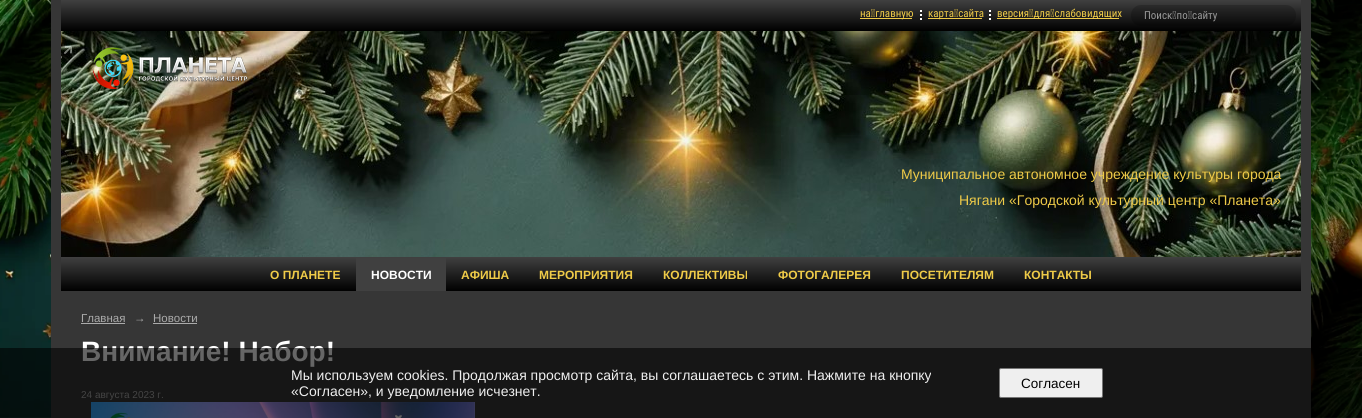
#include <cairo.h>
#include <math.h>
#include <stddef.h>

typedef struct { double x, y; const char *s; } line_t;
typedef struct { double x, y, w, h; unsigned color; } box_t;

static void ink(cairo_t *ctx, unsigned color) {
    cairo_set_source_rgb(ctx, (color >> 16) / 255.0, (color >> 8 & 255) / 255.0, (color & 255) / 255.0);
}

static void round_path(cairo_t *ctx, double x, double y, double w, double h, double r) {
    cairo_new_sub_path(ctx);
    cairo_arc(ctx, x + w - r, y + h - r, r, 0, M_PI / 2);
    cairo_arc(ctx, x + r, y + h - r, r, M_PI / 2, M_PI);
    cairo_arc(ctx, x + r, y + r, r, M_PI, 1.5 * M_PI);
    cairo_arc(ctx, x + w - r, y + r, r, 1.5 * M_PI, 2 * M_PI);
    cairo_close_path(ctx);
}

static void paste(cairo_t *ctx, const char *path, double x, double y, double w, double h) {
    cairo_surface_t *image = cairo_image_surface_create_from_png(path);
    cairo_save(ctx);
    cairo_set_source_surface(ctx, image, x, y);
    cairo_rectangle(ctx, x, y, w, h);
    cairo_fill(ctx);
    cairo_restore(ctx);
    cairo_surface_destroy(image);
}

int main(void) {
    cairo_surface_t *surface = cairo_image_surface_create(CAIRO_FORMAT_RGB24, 1362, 418);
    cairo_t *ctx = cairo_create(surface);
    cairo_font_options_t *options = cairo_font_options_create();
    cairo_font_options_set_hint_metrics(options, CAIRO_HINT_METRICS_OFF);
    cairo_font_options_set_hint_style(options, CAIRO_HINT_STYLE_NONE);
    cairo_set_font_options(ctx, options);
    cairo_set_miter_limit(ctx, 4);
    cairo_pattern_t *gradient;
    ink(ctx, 0xFFFFFF);
    cairo_paint(ctx);
    paste(ctx, "media/1.png", 0, 0, 1362, 418);
    ink(ctx, 0x363636);
    cairo_rectangle(ctx, 51, 0, 1260, 418);
    cairo_fill(ctx);
    gradient = cairo_pattern_create_linear(681, 0, 681, 31);
    cairo_pattern_add_color_stop_rgba(gradient, 0, 0.251, 0.251, 0.251, 1);
    cairo_pattern_add_color_stop_rgba(gradient, 1, 0, 0, 0, 1);
    cairo_set_source(ctx, gradient);
    cairo_pattern_destroy(gradient);
    cairo_rectangle(ctx, 61, 0, 1240, 31);
    cairo_fill(ctx);
    ink(ctx, 0xEFCB48);
    cairo_rectangle(ctx, 860, 18, 52, 1);
    cairo_fill(ctx);
    cairo_select_font_face(ctx, "Roboto Condensed", CAIRO_FONT_SLANT_NORMAL, CAIRO_FONT_WEIGHT_NORMAL);
    cairo_set_font_size(ctx, 11);
    cairo_move_to(ctx, 860, 17);
    cairo_show_text(ctx, "на главную");
    {
        static const box_t items[] = {
            {920, 18, 2, 2, 0xFFFFFF},
            {920, 14, 2, 2, 0xFFFFFF},
            {920, 10, 2, 2, 0xFFFFFF},
            {928, 18, 54, 1, 0xEFCB48},
        };
        for (size_t i = 0; i < sizeof items / sizeof *items; i++) {
            ink(ctx, items[i].color);
            cairo_rectangle(ctx, items[i].x, items[i].y, items[i].w, items[i].h);
            cairo_fill(ctx);
        }
    }
    cairo_move_to(ctx, 928, 17);
    cairo_show_text(ctx, "карта сайта");
    {
        static const box_t items[] = {
            {989, 18, 2, 2, 0xFFFFFF},
            {989, 14, 2, 2, 0xFFFFFF},
            {989, 10, 2, 2, 0xFFFFFF},
            {997, 18, 122, 1, 0xEFCB48},
        };
        for (size_t i = 0; i < sizeof items / sizeof *items; i++) {
            ink(ctx, items[i].color);
            cairo_rectangle(ctx, items[i].x, items[i].y, items[i].w, items[i].h);
            cairo_fill(ctx);
        }
    }
    cairo_move_to(ctx, 997, 17);
    cairo_show_text(ctx, "версия для слабовидящих");
    cairo_set_source_rgba(ctx, 0, 0, 0, 0.2);
    round_path(ctx, 1131, 5, 165, 21, 10);
    cairo_fill(ctx);
    ink(ctx, 0x999999);
    cairo_move_to(ctx, 1144, 19);
    cairo_show_text(ctx, "Поиск по сайту");
    paste(ctx, "media/2.png", 61, 31, 1240, 226);
    paste(ctx, "media/3.png", 92, 47, 156, 42);
    cairo_select_font_face(ctx, "Liberation Sans", CAIRO_FONT_SLANT_NORMAL, CAIRO_FONT_WEIGHT_NORMAL);
    cairo_set_font_size(ctx, 14);
    ink(ctx, 0xEFCB48);
    cairo_move_to(ctx, 901, 179);
    cairo_show_text(ctx, "Муниципальное автономное учреждение культуры города");
    cairo_move_to(ctx, 959, 205);
    cairo_show_text(ctx, "Нягани «Городской культурный центр «Планета»");
    gradient = cairo_pattern_create_linear(681, 257, 681, 291);
    cairo_pattern_add_color_stop_rgba(gradient, 0, 0.251, 0.251, 0.251, 1);
    cairo_pattern_add_color_stop_rgba(gradient, 1, 0, 0, 0, 1);
    cairo_set_source(ctx, gradient);
    cairo_pattern_destroy(gradient);
    cairo_rectangle(ctx, 61, 257, 1240, 34);
    cairo_fill(ctx);
    cairo_select_font_face(ctx, "Liberation Sans", CAIRO_FONT_SLANT_NORMAL, CAIRO_FONT_WEIGHT_BOLD);
    cairo_set_font_size(ctx, 12);
    ink(ctx, 0xEFCB48);
    cairo_move_to(ctx, 270, 279);
    cairo_show_text(ctx, "О ПЛАНЕТЕ");
    ink(ctx, 0x404040);
    cairo_rectangle(ctx, 356, 258, 90, 33);
    cairo_fill(ctx);
    ink(ctx, 0xFFFFFF);
    cairo_move_to(ctx, 371, 279);
    cairo_show_text(ctx, "НОВОСТИ");
    ink(ctx, 0xEFCB48);
    {
        static const line_t items[] = {
            {461, 279, "АФИША"},
            {539, 279, "МЕРОПРИЯТИЯ"},
            {663, 279, "КОЛЛЕКТИВЫ"},
            {778, 279, "ФОТОГАЛЕРЕЯ"},
            {901, 279, "ПОСЕТИТЕЛЯМ"},
            {1024, 279, "КОНТАКТЫ"},
        };
        for (size_t i = 0; i < sizeof items / sizeof *items; i++) {
            cairo_move_to(ctx, items[i].x, items[i].y);
            cairo_show_text(ctx, items[i].s);
        }
    }
    cairo_select_font_face(ctx, "Liberation Sans", CAIRO_FONT_SLANT_NORMAL, CAIRO_FONT_WEIGHT_NORMAL);
    cairo_set_font_size(ctx, 11.5);
    ink(ctx, 0xABABAB);
    cairo_move_to(ctx, 81, 322);
    cairo_show_text(ctx, "Главная");
    cairo_rectangle(ctx, 81, 323, 44, 1);
    cairo_fill(ctx);
    cairo_select_font_face(ctx, "Liberation Sans", CAIRO_FONT_SLANT_ITALIC, CAIRO_FONT_WEIGHT_NORMAL);
    cairo_move_to(ctx, 134, 322);
    cairo_show_text(ctx, "→");
    cairo_select_font_face(ctx, "Liberation Sans", CAIRO_FONT_SLANT_NORMAL, CAIRO_FONT_WEIGHT_NORMAL);
    cairo_move_to(ctx, 153, 322);
    cairo_show_text(ctx, "Новости");
    cairo_rectangle(ctx, 153, 323, 44, 1);
    cairo_fill(ctx);
    cairo_select_font_face(ctx, "Liberation Sans", CAIRO_FONT_SLANT_NORMAL, CAIRO_FONT_WEIGHT_BOLD);
    cairo_set_font_size(ctx, 28);
    ink(ctx, 0xFFFFFF);
    cairo_move_to(ctx, 81, 361);
    cairo_show_text(ctx, "Внимание! Набор!");
    cairo_select_font_face(ctx, "Liberation Sans", CAIRO_FONT_SLANT_NORMAL, CAIRO_FONT_WEIGHT_NORMAL);
    cairo_set_font_size(ctx, 10);
    ink(ctx, 0xABABAB);
    cairo_move_to(ctx, 81, 398);
    cairo_show_text(ctx, "24 августа 2023 г.");
    paste(ctx, "media/4.png", 91, 402, 384, 16);
    cairo_set_source_rgba(ctx, 0, 0, 0, 0.6);
    cairo_rectangle(ctx, 0, 348, 1362, 70);
    cairo_fill(ctx);
    cairo_set_font_size(ctx, 14);
    ink(ctx, 0xEFEFEF);
    cairo_move_to(ctx, 291, 380);
    cairo_show_text(ctx, "Мы используем cookies. Продолжая просмотр сайта, вы соглашаетесь с этим. Нажмите на кнопку");
    cairo_move_to(ctx, 291, 396);
    cairo_show_text(ctx, "«Согласен», и уведомление исчезнет.");
    round_path(ctx, 999.5, 368.5, 103, 29, 1.5);
    cairo_fill_preserve(ctx);
    ink(ctx, 0x767676);
    cairo_set_line_width(ctx, 1);
    cairo_stroke(ctx);
    cairo_set_font_size(ctx, 13.5);
    ink(ctx, 0x000000);
    cairo_move_to(ctx, 1021, 388);
    cairo_show_text(ctx, "Согласен");
    cairo_surface_write_to_png(surface, "image.png");
    cairo_font_options_destroy(options);
    cairo_destroy(ctx);
    cairo_surface_destroy(surface);
    return 0;
}
